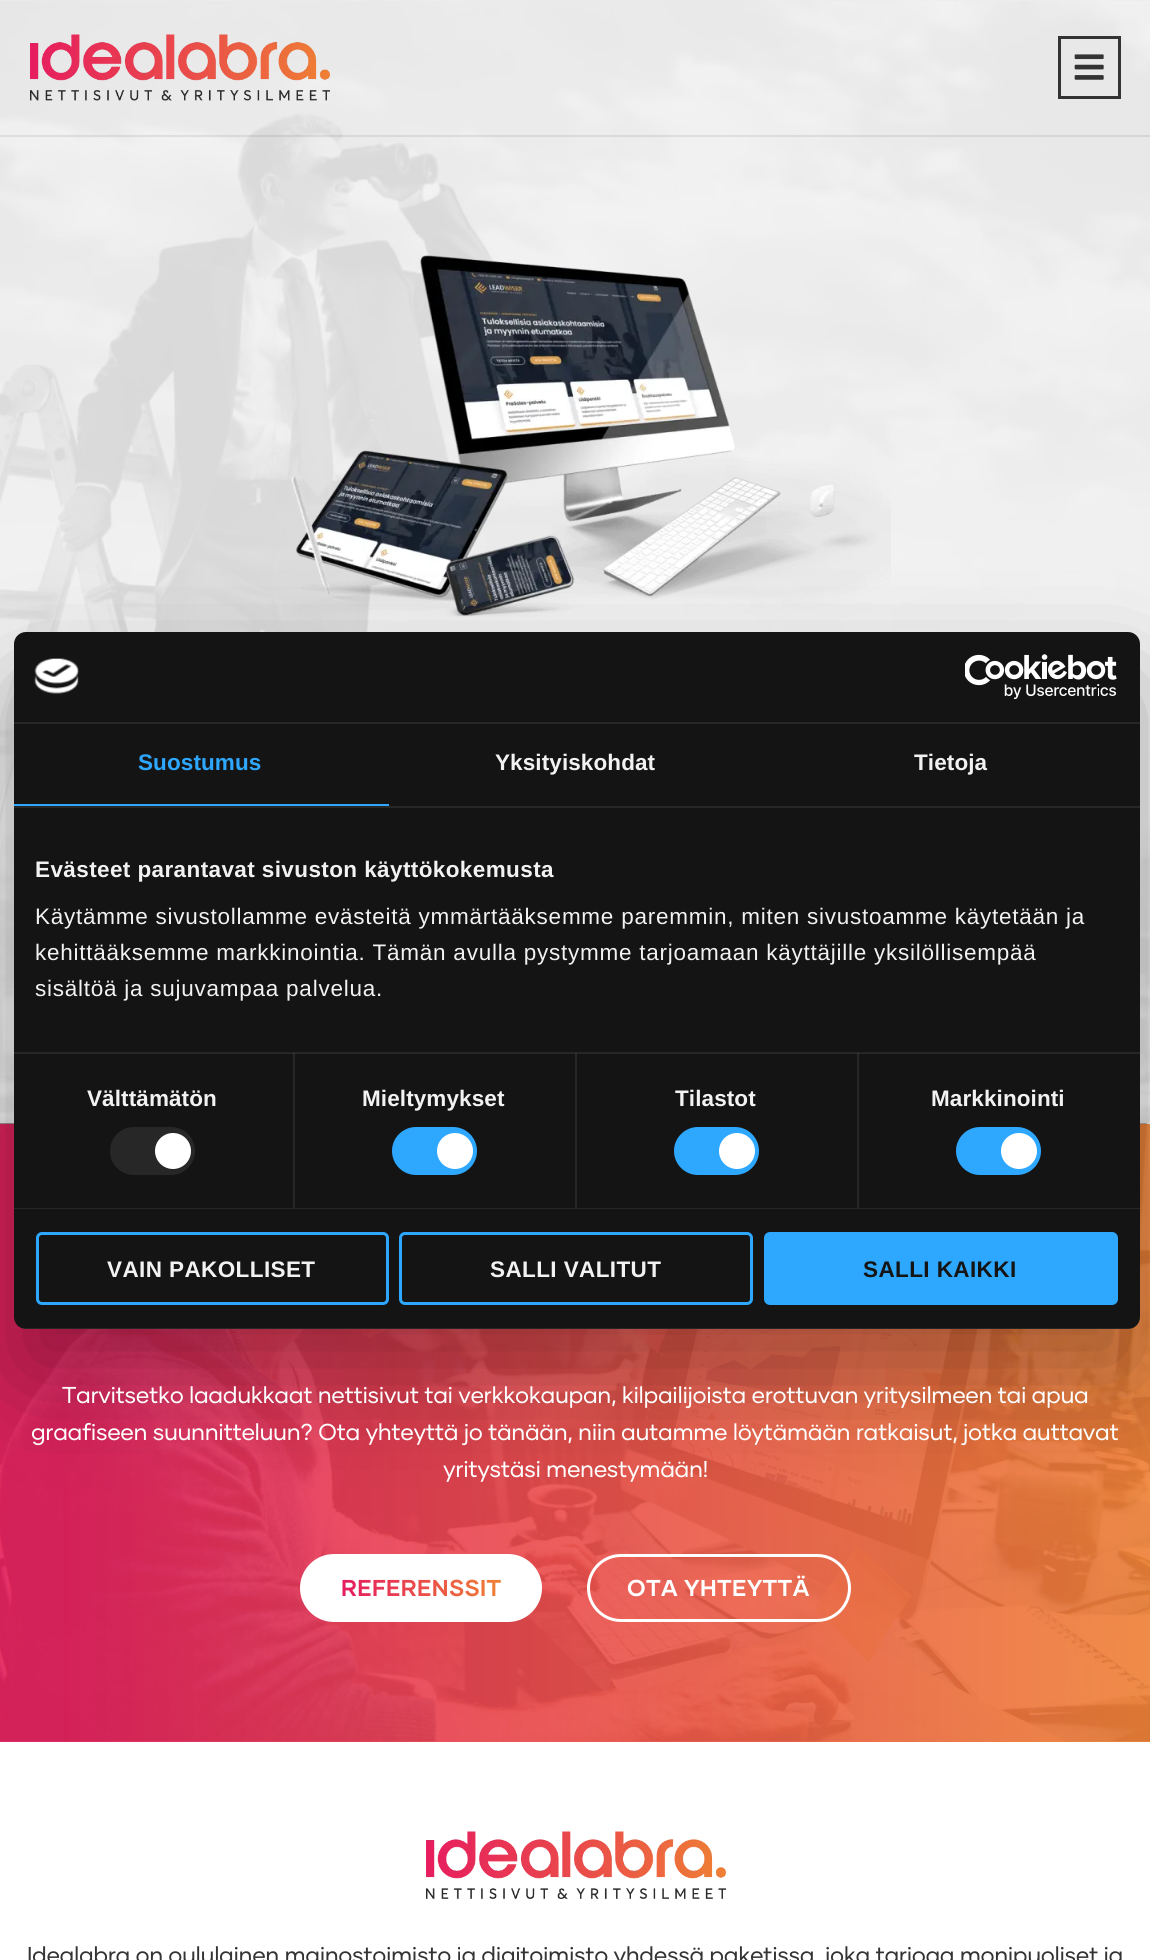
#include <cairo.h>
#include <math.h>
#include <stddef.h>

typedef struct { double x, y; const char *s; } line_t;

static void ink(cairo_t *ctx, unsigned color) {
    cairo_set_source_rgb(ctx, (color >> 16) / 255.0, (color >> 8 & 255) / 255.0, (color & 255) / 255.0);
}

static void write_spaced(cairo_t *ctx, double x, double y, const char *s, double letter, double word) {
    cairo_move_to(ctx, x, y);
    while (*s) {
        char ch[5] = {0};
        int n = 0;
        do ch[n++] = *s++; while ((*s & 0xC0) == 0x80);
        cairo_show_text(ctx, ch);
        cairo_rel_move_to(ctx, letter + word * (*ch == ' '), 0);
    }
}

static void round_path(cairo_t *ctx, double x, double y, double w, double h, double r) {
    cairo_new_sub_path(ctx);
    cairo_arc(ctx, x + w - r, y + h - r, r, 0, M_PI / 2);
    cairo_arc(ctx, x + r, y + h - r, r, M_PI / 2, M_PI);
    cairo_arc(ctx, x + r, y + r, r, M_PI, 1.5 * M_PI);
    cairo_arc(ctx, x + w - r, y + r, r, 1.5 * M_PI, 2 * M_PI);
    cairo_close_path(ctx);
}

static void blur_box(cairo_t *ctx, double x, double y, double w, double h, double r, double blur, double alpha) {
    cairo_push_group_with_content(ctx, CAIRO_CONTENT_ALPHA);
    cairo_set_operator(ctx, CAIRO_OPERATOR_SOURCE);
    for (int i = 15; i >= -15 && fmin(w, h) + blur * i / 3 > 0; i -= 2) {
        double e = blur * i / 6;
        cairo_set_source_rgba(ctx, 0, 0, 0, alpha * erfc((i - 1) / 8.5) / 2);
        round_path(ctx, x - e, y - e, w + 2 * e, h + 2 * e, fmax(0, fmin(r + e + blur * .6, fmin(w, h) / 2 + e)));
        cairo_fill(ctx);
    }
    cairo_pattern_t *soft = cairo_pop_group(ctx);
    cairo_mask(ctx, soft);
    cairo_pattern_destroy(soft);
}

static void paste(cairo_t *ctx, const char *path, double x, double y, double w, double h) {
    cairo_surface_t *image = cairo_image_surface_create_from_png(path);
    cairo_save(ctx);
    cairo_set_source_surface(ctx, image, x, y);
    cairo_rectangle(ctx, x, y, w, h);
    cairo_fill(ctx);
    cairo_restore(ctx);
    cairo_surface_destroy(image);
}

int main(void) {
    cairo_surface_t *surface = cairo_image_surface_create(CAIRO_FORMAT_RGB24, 1150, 1960);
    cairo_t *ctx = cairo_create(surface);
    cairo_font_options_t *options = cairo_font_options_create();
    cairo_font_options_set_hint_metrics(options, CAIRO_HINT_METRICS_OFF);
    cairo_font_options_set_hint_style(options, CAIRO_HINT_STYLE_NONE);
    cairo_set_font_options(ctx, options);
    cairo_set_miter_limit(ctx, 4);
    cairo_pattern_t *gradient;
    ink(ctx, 0xFFFFFF);
    cairo_paint(ctx);
    paste(ctx, "media/1.png", 0, 0, 1150, 1124);
    paste(ctx, "media/2.png", 291, 255, 600, 362);
    cairo_set_source_rgba(ctx, 0, 0, 0, 0.08);
    cairo_rectangle(ctx, 0, 135, 1150, 2);
    cairo_fill(ctx);
    paste(ctx, "media/3.png", 30, 34, 300, 67);
    cairo_rectangle(ctx, 1059.5, 37.5, 60, 60);
    ink(ctx, 0x333333);
    cairo_set_line_width(ctx, 3);
    cairo_stroke(ctx);
    paste(ctx, "media/4.png", 1074, 54, 30, 26);
    paste(ctx, "media/7.png", 0, 1123, 1150, 619);
    gradient = cairo_pattern_create_linear(0, 1433, 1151, 1433);
    cairo_pattern_add_color_stop_rgba(gradient, 0.05, 0.902, 0.125, 0.369, 0.9);
    cairo_pattern_add_color_stop_rgba(gradient, 1, 0.937, 0.502, 0.208, 0.9);
    cairo_set_source(ctx, gradient);
    cairo_pattern_destroy(gradient);
    cairo_rectangle(ctx, 0, 1124, 1150, 618);
    cairo_fill(ctx);
    ink(ctx, 0x000000);
    blur_box(ctx, 14, 680, 1126, 697, 12, 51, 0.3);
    ink(ctx, 0x141414);
    round_path(ctx, 14, 632, 1126, 697, 12);
    cairo_fill(ctx);
    ink(ctx, 0x272727);
    cairo_rectangle(ctx, 14, 722, 1126, 2);
    cairo_fill(ctx);
    paste(ctx, "media/5.png", 34, 658, 45, 36);
    paste(ctx, "media/6.png", 965, 654, 152, 45);
    cairo_rectangle(ctx, 14, 806, 1126, 2);
    cairo_fill(ctx);
    ink(ctx, 0x2EA7FF);
    cairo_rectangle(ctx, 14, 804, 375, 2);
    cairo_fill(ctx);
    cairo_select_font_face(ctx, "Liberation Sans", CAIRO_FONT_SLANT_NORMAL, CAIRO_FONT_WEIGHT_BOLD);
    cairo_set_font_size(ctx, 22.5);
    write_spaced(ctx, 138, 770, "Suostumus", 0.1, 0);
    ink(ctx, 0xF2F2F2);
    write_spaced(ctx, 495, 770, "Yksityiskohdat", 0.1, 0);
    write_spaced(ctx, 914, 770, "Tietoja", 0.1, 0);
    ink(ctx, 0x272727);
    cairo_rectangle(ctx, 293, 1053, 2, 155);
    cairo_fill(ctx);
    cairo_rectangle(ctx, 575, 1053, 2, 155);
    cairo_fill(ctx);
    cairo_rectangle(ctx, 857, 1053, 2, 155);
    cairo_fill(ctx);
    cairo_set_source_rgba(ctx, 1, 1, 1, 0.08);
    cairo_rectangle(ctx, 14, 1052, 1126, 2);
    cairo_fill(ctx);
    ink(ctx, 0xF2F2F2);
    write_spaced(ctx, 35, 877, "Evästeet parantavat sivuston käyttökokemusta", 0.4, 0);
    cairo_select_font_face(ctx, "Liberation Sans", CAIRO_FONT_SLANT_NORMAL, CAIRO_FONT_WEIGHT_NORMAL);
    {
        static const line_t items[] = {
            {35, 924, "Käytämme sivustollamme evästeitä ymmärtääksemme paremmin, miten sivustoamme käytetään ja"},
            {35, 960, "kehittääksemme markkinointia. Tämän avulla pystymme tarjoamaan käyttäjille yksilöllisempää"},
            {35, 996, "sisältöä ja sujuvampaa palvelua."},
        };
        for (size_t i = 0; i < sizeof items / sizeof *items; i++) {
            write_spaced(ctx, items[i].x, items[i].y, items[i].s, 0.75, 0);
        }
    }
    ink(ctx, 0x272727);
    cairo_rectangle(ctx, 14, 1208, 1126, 1);
    cairo_fill(ctx);
    cairo_select_font_face(ctx, "Liberation Sans", CAIRO_FONT_SLANT_NORMAL, CAIRO_FONT_WEIGHT_BOLD);
    ink(ctx, 0xF2F2F2);
    write_spaced(ctx, 87, 1106, "Välttämätön", 0.1, 0);
    ink(ctx, 0x272727);
    round_path(ctx, 110, 1127, 85, 48, 24);
    cairo_fill(ctx);
    ink(ctx, 0xFFFFFF);
    cairo_arc(ctx, 173, 1151, 18, 0, 2 * M_PI);
    cairo_fill(ctx);
    ink(ctx, 0xF2F2F2);
    write_spaced(ctx, 362, 1106, "Mieltymykset", 0.1, 0);
    ink(ctx, 0x2EA7FF);
    round_path(ctx, 392, 1127, 85, 48, 24);
    cairo_fill(ctx);
    ink(ctx, 0xFFFFFF);
    cairo_arc(ctx, 455, 1151, 18, 0, 2 * M_PI);
    cairo_fill(ctx);
    ink(ctx, 0xF2F2F2);
    write_spaced(ctx, 675, 1106, "Tilastot", 0.1, 0);
    ink(ctx, 0x2EA7FF);
    round_path(ctx, 674, 1127, 85, 48, 24);
    cairo_fill(ctx);
    ink(ctx, 0xFFFFFF);
    cairo_arc(ctx, 737, 1151, 18, 0, 2 * M_PI);
    cairo_fill(ctx);
    ink(ctx, 0xF2F2F2);
    write_spaced(ctx, 931, 1106, "Markkinointi", 0.1, 0);
    ink(ctx, 0x2EA7FF);
    round_path(ctx, 956, 1127, 85, 48, 24);
    cairo_fill(ctx);
    ink(ctx, 0xFFFFFF);
    cairo_arc(ctx, 1019, 1151, 18, 0, 2 * M_PI);
    cairo_fill(ctx);
    cairo_save(ctx);
    round_path(ctx, 14, 632, 1126, 697, 12);
    cairo_clip(ctx);
    cairo_set_source_rgba(ctx, 1, 1, 1, 0.08);
    cairo_rectangle(ctx, 14, 1328, 1126, 1);
    cairo_fill(ctx);
    cairo_restore(ctx);
    round_path(ctx, 37.5, 1233.5, 350, 70, 4.5);
    ink(ctx, 0x2EA7FF);
    cairo_stroke(ctx);
    ink(ctx, 0xF2F2F2);
    write_spaced(ctx, 107, 1277, "VAIN PAKOLLISET", 0.4, 0);
    round_path(ctx, 400.5, 1233.5, 351, 70, 4.5);
    ink(ctx, 0x2EA7FF);
    cairo_stroke(ctx);
    ink(ctx, 0xF2F2F2);
    write_spaced(ctx, 490, 1277, "SALLI VALITUT", 0.4, 0);
    ink(ctx, 0x2EA7FF);
    round_path(ctx, 765.5, 1233.5, 351, 70, 4.5);
    cairo_fill_preserve(ctx);
    cairo_stroke(ctx);
    ink(ctx, 0x141414);
    write_spaced(ctx, 863, 1277, "SALLI KAIKKI", 0.4, 0);
    cairo_select_font_face(ctx, "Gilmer", CAIRO_FONT_SLANT_NORMAL, CAIRO_FONT_WEIGHT_NORMAL);
    cairo_set_font_size(ctx, 22.95);
    ink(ctx, 0xFFFFFF);
    {
        static const line_t items[] = {
            {62, 1403, "Tarvitsetko laadukkaat nettisivut tai verkkokaupan, kilpailijoista erottuvan yritysilmeen tai apua"},
            {31, 1440, "graafiseen suunnitteluun? Ota yhteyttä jo tänään, niin autamme löytämään ratkaisut, jotka auttavat"},
            {443, 1477, "yritystäsi menestymään!"},
        };
        for (size_t i = 0; i < sizeof items / sizeof *items; i++) {
            write_spaced(ctx, items[i].x, items[i].y, items[i].s, -0.38, 0);
        }
    }
    round_path(ctx, 301.5, 1555.5, 239, 65, 32.5);
    cairo_fill_preserve(ctx);
    cairo_stroke(ctx);
    cairo_select_font_face(ctx, "Gilmer", CAIRO_FONT_SLANT_NORMAL, CAIRO_FONT_WEIGHT_BOLD);
    gradient = cairo_pattern_create_linear(341, 1588, 501, 1588);
    cairo_pattern_add_color_stop_rgba(gradient, 0.05, 0.902, 0.125, 0.369, 1);
    cairo_pattern_add_color_stop_rgba(gradient, 1, 0.937, 0.502, 0.208, 1);
    cairo_set_source(ctx, gradient);
    cairo_pattern_destroy(gradient);
    write_spaced(ctx, 341, 1596, "REFERENSSIT", 0.4, 0);
    round_path(ctx, 588.5, 1555.5, 261, 65, 32.5);
    ink(ctx, 0xFFFFFF);
    cairo_stroke(ctx);
    write_spaced(ctx, 627, 1596, "OTA YHTEYTTÄ", 0.4, 0);
    paste(ctx, "media/8.png", 426, 1831, 300, 68);
    cairo_select_font_face(ctx, "Gilmer", CAIRO_FONT_SLANT_NORMAL, CAIRO_FONT_WEIGHT_NORMAL);
    ink(ctx, 0x333333);
    write_spaced(ctx, 27, 1963, "Idealabra on oululainen mainostoimisto ja digitoimisto yhdessä paketissa, joka tarjoaa monipuoliset ja", -0.38, 0);
    cairo_surface_write_to_png(surface, "image.png");
    cairo_font_options_destroy(options);
    cairo_destroy(ctx);
    cairo_surface_destroy(surface);
    return 0;
}
